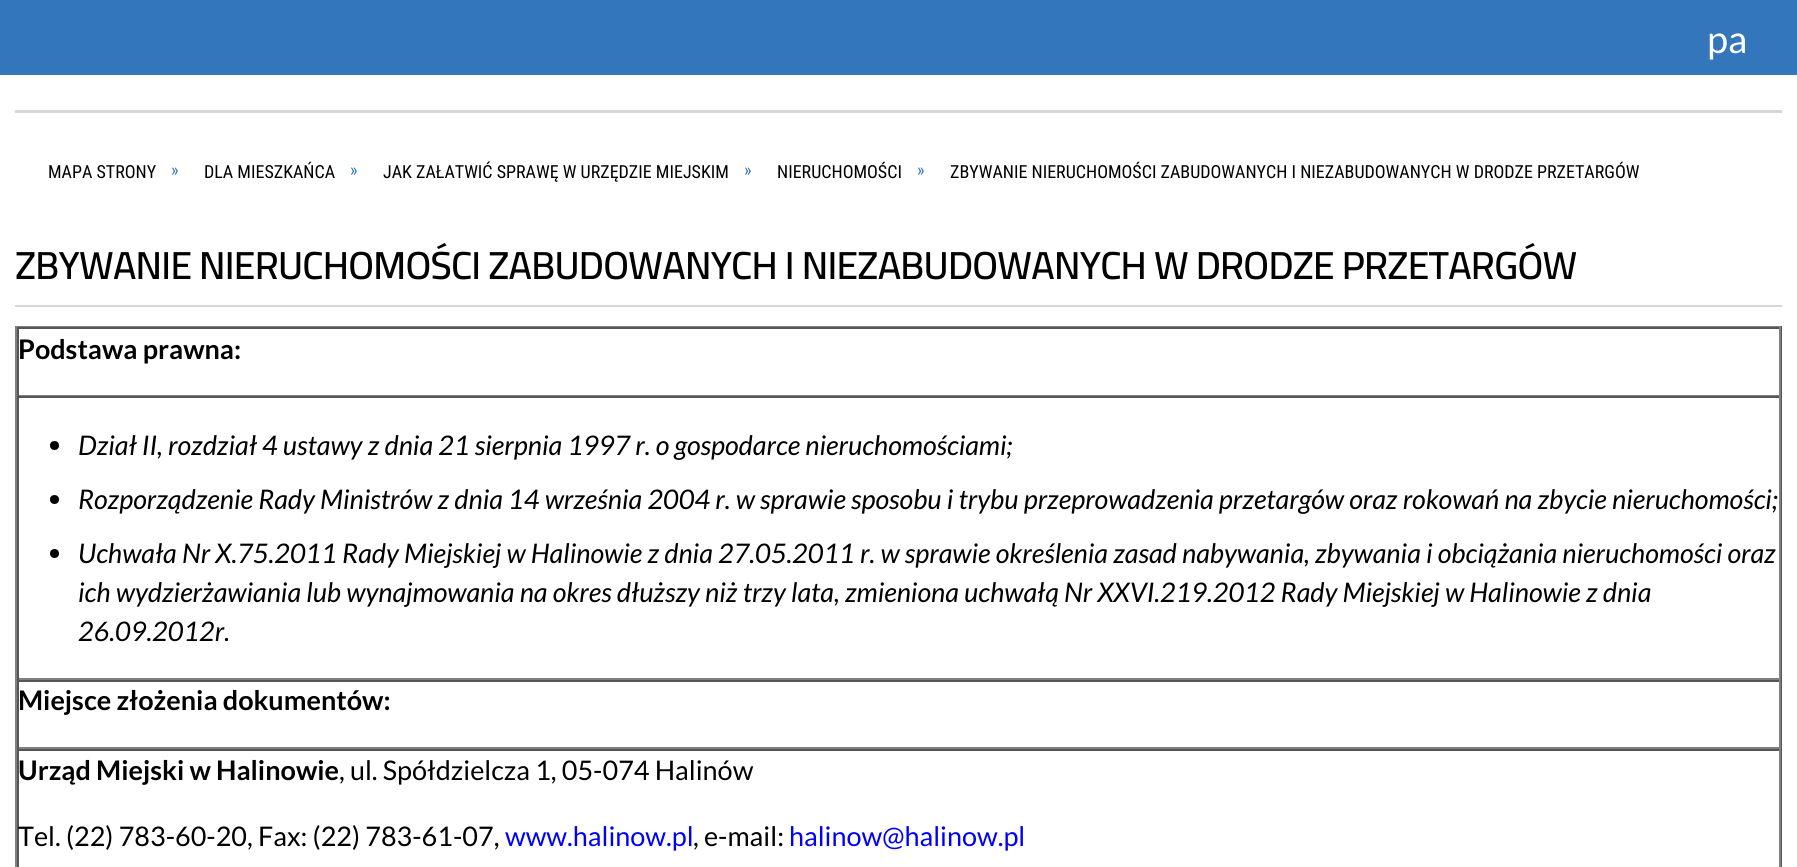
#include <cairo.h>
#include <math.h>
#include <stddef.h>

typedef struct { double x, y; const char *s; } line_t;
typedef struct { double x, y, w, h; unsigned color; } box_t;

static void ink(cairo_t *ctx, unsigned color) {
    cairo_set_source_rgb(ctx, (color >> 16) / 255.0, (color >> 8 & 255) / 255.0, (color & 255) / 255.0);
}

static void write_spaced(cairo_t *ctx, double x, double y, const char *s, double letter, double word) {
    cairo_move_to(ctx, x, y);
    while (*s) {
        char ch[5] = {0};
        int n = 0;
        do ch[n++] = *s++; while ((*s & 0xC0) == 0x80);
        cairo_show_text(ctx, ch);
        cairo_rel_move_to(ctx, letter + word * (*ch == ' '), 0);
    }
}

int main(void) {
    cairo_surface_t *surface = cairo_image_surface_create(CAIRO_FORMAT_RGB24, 1797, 867);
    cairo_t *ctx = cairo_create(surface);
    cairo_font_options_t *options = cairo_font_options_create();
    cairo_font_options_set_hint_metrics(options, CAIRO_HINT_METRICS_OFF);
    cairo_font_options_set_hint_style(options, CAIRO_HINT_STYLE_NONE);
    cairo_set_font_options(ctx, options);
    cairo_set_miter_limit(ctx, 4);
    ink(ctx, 0xFFFFFF);
    cairo_paint(ctx);
    ink(ctx, 0x3376BC);
    cairo_rectangle(ctx, 0, 0, 1797, 75);
    cairo_fill(ctx);
    cairo_select_font_face(ctx, "Lato", CAIRO_FONT_SLANT_NORMAL, CAIRO_FONT_WEIGHT_NORMAL);
    cairo_set_font_size(ctx, 38);
    ink(ctx, 0xFFFFFF);
    cairo_move_to(ctx, 1707, 53);
    cairo_show_text(ctx, "pa");
    ink(ctx, 0xD7D7D7);
    cairo_rectangle(ctx, 15, 110, 1767, 3);
    cairo_fill(ctx);
    cairo_select_font_face(ctx, "Roboto Condensed", CAIRO_FONT_SLANT_NORMAL, CAIRO_FONT_WEIGHT_NORMAL);
    cairo_set_font_size(ctx, 18);
    ink(ctx, 0x000000);
    cairo_move_to(ctx, 48, 178);
    cairo_show_text(ctx, "MAPA STRONY");
    ink(ctx, 0x3376BC);
    cairo_move_to(ctx, 171, 176);
    cairo_show_text(ctx, "»");
    ink(ctx, 0x000000);
    cairo_move_to(ctx, 204, 178);
    cairo_show_text(ctx, "DLA MIESZKAŃCA");
    ink(ctx, 0x3376BC);
    cairo_move_to(ctx, 350, 176);
    cairo_show_text(ctx, "»");
    ink(ctx, 0x000000);
    cairo_move_to(ctx, 383, 178);
    cairo_show_text(ctx, "JAK ZAŁATWIĆ SPRAWĘ W URZĘDZIE MIEJSKIM");
    ink(ctx, 0x3376BC);
    cairo_move_to(ctx, 744, 176);
    cairo_show_text(ctx, "»");
    ink(ctx, 0x000000);
    cairo_move_to(ctx, 777, 178);
    cairo_show_text(ctx, "NIERUCHOMOŚCI");
    ink(ctx, 0x3376BC);
    cairo_move_to(ctx, 917, 176);
    cairo_show_text(ctx, "»");
    ink(ctx, 0x000000);
    cairo_move_to(ctx, 950, 178);
    cairo_show_text(ctx, "ZBYWANIE NIERUCHOMOŚCI ZABUDOWANYCH I NIEZABUDOWANYCH W DRODZE PRZETARGÓW");
    ink(ctx, 0xD7D7D7);
    cairo_rectangle(ctx, 15, 305, 1767, 2);
    cairo_fill(ctx);
    cairo_select_font_face(ctx, "Cairo SemiBold", CAIRO_FONT_SLANT_NORMAL, CAIRO_FONT_WEIGHT_NORMAL);
    cairo_set_font_size(ctx, 39);
    ink(ctx, 0x000000);
    write_spaced(ctx, 15, 279, "ZBYWANIE NIERUCHOMOŚCI ZABUDOWANYCH I NIEZABUDOWANYCH W DRODZE PRZETARGÓW", -0.75, 0);
    {
        static const box_t items[] = {
            {15, 326, 1767, 1, 0x808080},
            {1781, 326, 1, 541, 0x555555},
            {15, 326, 2, 541, 0x808080},
            {17, 327, 1764, 2, 0x555555},
            {1779, 327, 2, 69, 0x808080},
            {17, 395, 1764, 1, 0x808080},
            {17, 327, 2, 69, 0x555555},
        };
        for (size_t i = 0; i < sizeof items / sizeof *items; i++) {
            ink(ctx, items[i].color);
            cairo_rectangle(ctx, items[i].x, items[i].y, items[i].w, items[i].h);
            cairo_fill(ctx);
        }
    }
    cairo_select_font_face(ctx, "Lato", CAIRO_FONT_SLANT_NORMAL, CAIRO_FONT_WEIGHT_BOLD);
    cairo_set_font_size(ctx, 27);
    ink(ctx, 0x000000);
    cairo_move_to(ctx, 18, 359);
    cairo_show_text(ctx, "Podstawa prawna:");
    {
        static const box_t items[] = {
            {17, 396, 1764, 2, 0x555555},
            {1779, 396, 2, 284, 0x808080},
            {17, 678, 1764, 2, 0x808080},
            {17, 396, 2, 284, 0x555555},
        };
        for (size_t i = 0; i < sizeof items / sizeof *items; i++) {
            ink(ctx, items[i].color);
            cairo_rectangle(ctx, items[i].x, items[i].y, items[i].w, items[i].h);
            cairo_fill(ctx);
        }
    }
    ink(ctx, 0x000000);
    cairo_new_path(ctx);
    cairo_arc(ctx, 54.5, 445.5, 4.5, 0, 2 * M_PI);
    cairo_fill(ctx);
    cairo_select_font_face(ctx, "Lato", CAIRO_FONT_SLANT_ITALIC, CAIRO_FONT_WEIGHT_NORMAL);
    cairo_move_to(ctx, 78, 455);
    cairo_show_text(ctx, "Dział II, rozdział 4 ustawy z dnia 21 sierpnia 1997 r. o gospodarce nieruchomościami;");
    cairo_new_path(ctx);
    cairo_arc(ctx, 54.5, 499.5, 4.5, 0, 2 * M_PI);
    cairo_fill(ctx);
    cairo_move_to(ctx, 78, 509);
    cairo_show_text(ctx, "Rozporządzenie Rady Ministrów z dnia 14 września 2004 r. w sprawie sposobu i trybu przeprowadzenia przetargów oraz rokowań na zbycie nieruchomości;");
    cairo_new_path(ctx);
    cairo_arc(ctx, 54.5, 553.5, 4.5, 0, 2 * M_PI);
    cairo_fill(ctx);
    {
        static const line_t items[] = {
            {78, 563, "Uchwała Nr X.75.2011 Rady Miejskiej w Halinowie z dnia 27.05.2011 r. w sprawie określenia zasad nabywania, zbywania i obciążania nieruchomości oraz"},
            {78, 602, "ich wydzierżawiania lub wynajmowania na okres dłuższy niż trzy lata, zmieniona uchwałą Nr XXVI.219.2012 Rady Miejskiej w Halinowie z dnia"},
            {78, 641, "26.09.2012r."},
        };
        for (size_t i = 0; i < sizeof items / sizeof *items; i++) {
            cairo_move_to(ctx, items[i].x, items[i].y);
            cairo_show_text(ctx, items[i].s);
        }
    }
    {
        static const box_t items[] = {
            {17, 680, 1764, 2, 0x555555},
            {1779, 680, 2, 69, 0x808080},
            {17, 747, 1764, 2, 0x808080},
            {17, 680, 2, 69, 0x555555},
        };
        for (size_t i = 0; i < sizeof items / sizeof *items; i++) {
            ink(ctx, items[i].color);
            cairo_rectangle(ctx, items[i].x, items[i].y, items[i].w, items[i].h);
            cairo_fill(ctx);
        }
    }
    cairo_select_font_face(ctx, "Lato", CAIRO_FONT_SLANT_NORMAL, CAIRO_FONT_WEIGHT_BOLD);
    ink(ctx, 0x000000);
    cairo_move_to(ctx, 18, 710);
    cairo_show_text(ctx, "Miejsce złożenia dokumentów:");
    {
        static const box_t items[] = {
            {17, 749, 1764, 2, 0x555555},
            {1779, 749, 2, 118, 0x808080},
            {17, 749, 2, 118, 0x555555},
        };
        for (size_t i = 0; i < sizeof items / sizeof *items; i++) {
            ink(ctx, items[i].color);
            cairo_rectangle(ctx, items[i].x, items[i].y, items[i].w, items[i].h);
            cairo_fill(ctx);
        }
    }
    ink(ctx, 0x000000);
    cairo_move_to(ctx, 18, 780);
    cairo_show_text(ctx, "Urząd Miejski w Halinowie");
    cairo_select_font_face(ctx, "Lato", CAIRO_FONT_SLANT_NORMAL, CAIRO_FONT_WEIGHT_NORMAL);
    cairo_move_to(ctx, 339, 780);
    cairo_show_text(ctx, ", ul. Spółdzielcza 1, 05-074 Halinów");
    cairo_move_to(ctx, 18, 846);
    cairo_show_text(ctx, "Tel. (22) 783-60-20, Fax: (22) 783-61-07,");
    ink(ctx, 0x0000FF);
    cairo_move_to(ctx, 505, 846);
    cairo_show_text(ctx, "www.halinow.pl");
    ink(ctx, 0x000000);
    cairo_move_to(ctx, 693, 846);
    cairo_show_text(ctx, ", e-mail:");
    ink(ctx, 0x0000FF);
    cairo_move_to(ctx, 789, 846);
    cairo_show_text(ctx, "halinow@halinow.pl");
    cairo_surface_write_to_png(surface, "image.png");
    cairo_font_options_destroy(options);
    cairo_destroy(ctx);
    cairo_surface_destroy(surface);
    return 0;
}
